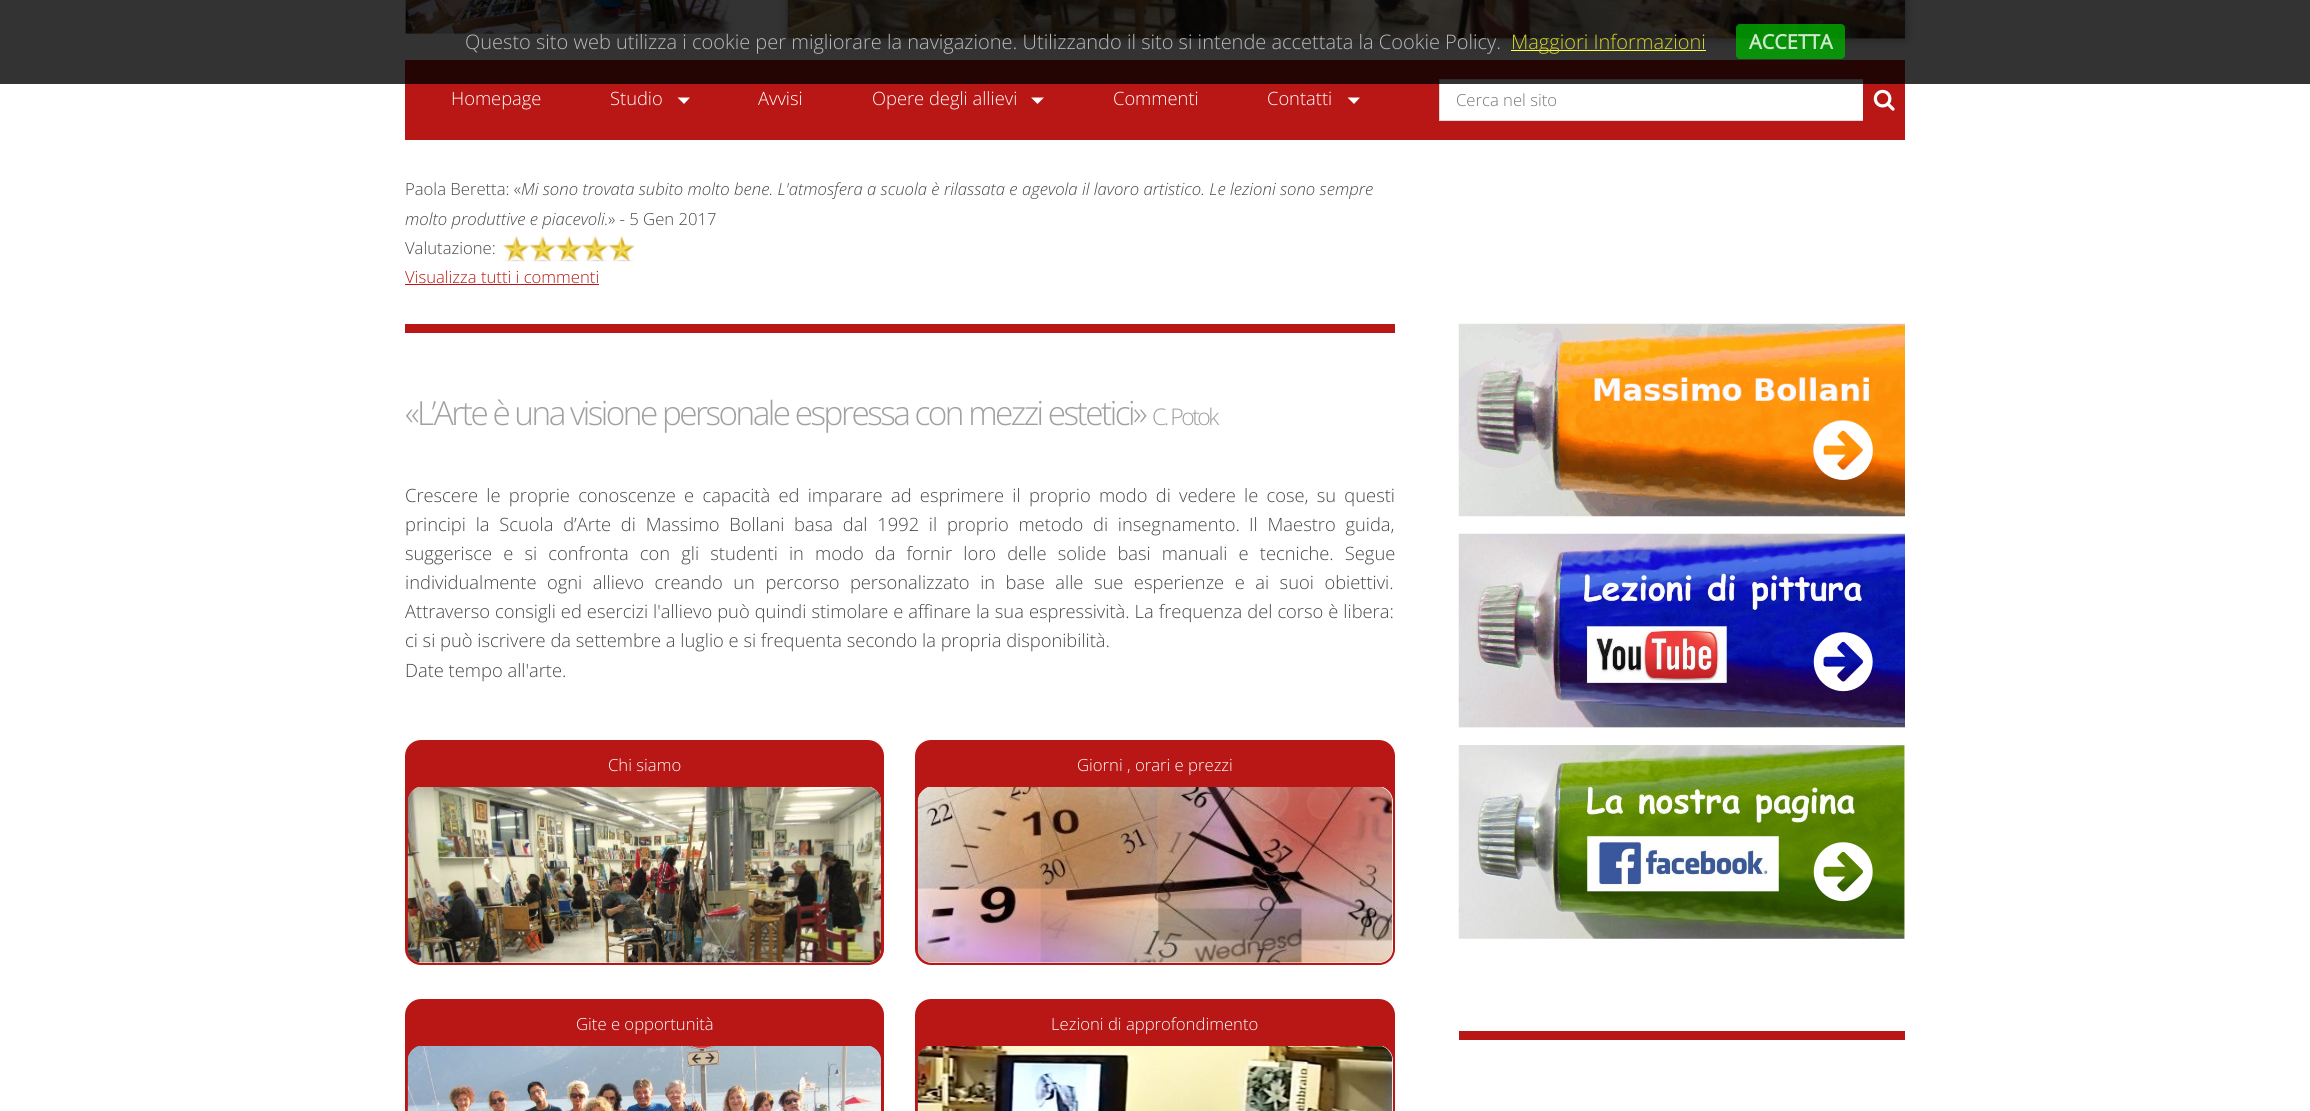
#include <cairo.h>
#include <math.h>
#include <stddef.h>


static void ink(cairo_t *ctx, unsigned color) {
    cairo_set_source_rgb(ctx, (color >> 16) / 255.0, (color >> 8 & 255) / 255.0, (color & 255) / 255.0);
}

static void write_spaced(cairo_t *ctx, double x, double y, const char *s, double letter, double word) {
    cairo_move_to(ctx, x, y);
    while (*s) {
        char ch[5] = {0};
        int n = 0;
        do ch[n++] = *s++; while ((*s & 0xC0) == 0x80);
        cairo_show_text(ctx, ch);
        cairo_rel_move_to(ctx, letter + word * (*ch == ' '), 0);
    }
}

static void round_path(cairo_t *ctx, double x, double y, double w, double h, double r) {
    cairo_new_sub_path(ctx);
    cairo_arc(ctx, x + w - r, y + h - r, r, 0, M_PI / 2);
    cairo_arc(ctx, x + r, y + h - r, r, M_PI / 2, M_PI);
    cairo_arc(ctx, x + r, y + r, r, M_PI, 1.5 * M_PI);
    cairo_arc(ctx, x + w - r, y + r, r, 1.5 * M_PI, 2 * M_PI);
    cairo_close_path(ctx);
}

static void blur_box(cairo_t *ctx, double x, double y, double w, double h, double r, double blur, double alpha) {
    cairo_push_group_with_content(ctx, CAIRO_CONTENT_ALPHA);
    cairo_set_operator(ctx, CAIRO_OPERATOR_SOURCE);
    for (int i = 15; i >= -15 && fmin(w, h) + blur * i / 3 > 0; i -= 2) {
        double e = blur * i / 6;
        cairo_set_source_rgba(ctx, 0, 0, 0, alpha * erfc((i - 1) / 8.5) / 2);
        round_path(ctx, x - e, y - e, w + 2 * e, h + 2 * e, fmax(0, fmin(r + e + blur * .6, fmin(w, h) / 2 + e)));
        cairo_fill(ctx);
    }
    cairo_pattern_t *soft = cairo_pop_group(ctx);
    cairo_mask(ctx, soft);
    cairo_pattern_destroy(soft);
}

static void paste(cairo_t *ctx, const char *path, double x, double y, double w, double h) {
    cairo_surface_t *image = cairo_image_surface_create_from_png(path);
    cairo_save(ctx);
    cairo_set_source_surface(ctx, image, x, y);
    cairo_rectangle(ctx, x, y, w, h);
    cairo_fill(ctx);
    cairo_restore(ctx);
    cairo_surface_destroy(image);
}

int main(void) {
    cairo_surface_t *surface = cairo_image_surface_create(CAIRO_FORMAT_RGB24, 2310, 1111);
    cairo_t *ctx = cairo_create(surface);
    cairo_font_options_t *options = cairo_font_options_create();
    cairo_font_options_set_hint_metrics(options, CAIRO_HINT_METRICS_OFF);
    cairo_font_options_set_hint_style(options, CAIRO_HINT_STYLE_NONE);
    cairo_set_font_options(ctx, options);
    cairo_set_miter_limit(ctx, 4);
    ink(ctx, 0xFFFFFF);
    cairo_paint(ctx);
    paste(ctx, "media/1.png", 405, 0, 330, 34);
    ink(ctx, 0x000000);
    blur_box(ctx, 788, -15, 1117, 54, 0, 5, 0.35);
    ink(ctx, 0xFFFFFF);
    cairo_rectangle(ctx, 788, 38, 1117, 1);
    cairo_fill(ctx);
    paste(ctx, "media/2.png", 787, 0, 1118, 39);
    ink(ctx, 0xB91715);
    cairo_rectangle(ctx, 405, 60, 1500, 80);
    cairo_fill(ctx);
    ink(ctx, 0xFFFFFF);
    cairo_rectangle(ctx, 1440, 80, 423, 40);
    cairo_fill(ctx);
    cairo_rectangle(ctx, 1439.5, 79.5, 465, 41);
    ink(ctx, 0xD9D9D9);
    cairo_set_line_width(ctx, 1);
    cairo_stroke(ctx);
    ink(ctx, 0xB91715);
    cairo_rectangle(ctx, 1863, 79, 42, 42);
    cairo_fill(ctx);
    cairo_set_source_rgba(ctx, 0, 0, 0, 0.8);
    cairo_rectangle(ctx, 0, 0, 2310, 84);
    cairo_fill(ctx);
    cairo_select_font_face(ctx, "Open Sans Light", CAIRO_FONT_SLANT_NORMAL, CAIRO_FONT_WEIGHT_NORMAL);
    cairo_set_font_size(ctx, 20);
    ink(ctx, 0xBABABA);
    cairo_move_to(ctx, 465, 49);
    cairo_show_text(ctx, "Questo sito web utilizza i cookie per migliorare la navigazione. Utilizzando il sito si intende accettata la Cookie Policy.");
    ink(ctx, 0xFFFF4E);
    cairo_rectangle(ctx, 1511, 50, 195, 1);
    cairo_fill(ctx);
    ink(ctx, 0xD5D524);
    cairo_move_to(ctx, 1511, 49);
    cairo_show_text(ctx, "Maggiori Informazioni");
    cairo_set_source_rgba(ctx, 0, 0.667, 0, 0.8);
    round_path(ctx, 1736, 24, 109, 35, 4);
    cairo_fill(ctx);
    cairo_select_font_face(ctx, "Open Sans", CAIRO_FONT_SLANT_NORMAL, CAIRO_FONT_WEIGHT_BOLD);
    ink(ctx, 0xCDE9CD);
    cairo_move_to(ctx, 1749, 49);
    cairo_show_text(ctx, "ACCETTA");
    cairo_select_font_face(ctx, "Open Sans Light", CAIRO_FONT_SLANT_NORMAL, CAIRO_FONT_WEIGHT_NORMAL);
    cairo_set_font_size(ctx, 18.33);
    ink(ctx, 0xFFFFFF);
    cairo_move_to(ctx, 451, 105);
    cairo_show_text(ctx, "Homepage");
    cairo_move_to(ctx, 610, 105);
    cairo_show_text(ctx, "Studio");
    cairo_new_path(ctx);
    cairo_move_to(ctx, 677.5, 97.5);
    cairo_line_to(ctx, 690, 97.5);
    cairo_line_to(ctx, 684, 104);
    cairo_close_path(ctx);
    cairo_fill(ctx);
    cairo_move_to(ctx, 758, 105);
    cairo_show_text(ctx, "Avvisi");
    cairo_move_to(ctx, 872, 105);
    cairo_show_text(ctx, "Opere degli allievi");
    cairo_new_path(ctx);
    cairo_move_to(ctx, 1031, 97.5);
    cairo_line_to(ctx, 1044, 97.5);
    cairo_line_to(ctx, 1037.5, 104);
    cairo_close_path(ctx);
    cairo_fill(ctx);
    cairo_move_to(ctx, 1113, 105);
    cairo_show_text(ctx, "Commenti");
    cairo_move_to(ctx, 1267, 105);
    cairo_show_text(ctx, "Contatti");
    cairo_new_path(ctx);
    cairo_move_to(ctx, 1347.5, 97.5);
    cairo_line_to(ctx, 1360, 97.5);
    cairo_line_to(ctx, 1354, 104);
    cairo_close_path(ctx);
    cairo_fill(ctx);
    cairo_set_font_size(ctx, 16.67);
    ink(ctx, 0x757575);
    cairo_move_to(ctx, 1456, 106);
    cairo_show_text(ctx, "Cerca nel sito");
    paste(ctx, "media/3.png", 1873, 89, 22, 22);
    ink(ctx, 0x474747);
    cairo_move_to(ctx, 405, 195);
    cairo_show_text(ctx, "Paola Beretta: «");
    cairo_select_font_face(ctx, "Open Sans Light", CAIRO_FONT_SLANT_ITALIC, CAIRO_FONT_WEIGHT_NORMAL);
    cairo_move_to(ctx, 521, 195);
    cairo_show_text(ctx, "Mi sono trovata subito molto bene. L'atmosfera a scuola è rilassata e agevola il lavoro artistico. Le lezioni sono sempre");
    cairo_move_to(ctx, 405, 225);
    cairo_show_text(ctx, "molto produttive e piacevoli.");
    cairo_select_font_face(ctx, "Open Sans Light", CAIRO_FONT_SLANT_NORMAL, CAIRO_FONT_WEIGHT_NORMAL);
    cairo_move_to(ctx, 608, 225);
    cairo_show_text(ctx, "» - 5 Gen 2017");
    cairo_move_to(ctx, 405, 254);
    cairo_show_text(ctx, "Valutazione:");
    paste(ctx, "media/4.png", 502, 236, 133, 26);
    ink(ctx, 0xB91715);
    cairo_move_to(ctx, 405, 283);
    cairo_show_text(ctx, "Visualizza tutti i commenti");
    cairo_rectangle(ctx, 405, 284, 194, 1);
    cairo_fill(ctx);
    cairo_rectangle(ctx, 405, 324, 990, 9);
    cairo_fill(ctx);
    cairo_set_font_size(ctx, 33.3);
    ink(ctx, 0xA0A0A0);
    write_spaced(ctx, 405, 425, "«L’Arte è una visione personale espressa con mezzi estetici»", -2.5, 0);
    cairo_set_font_size(ctx, 23);
    write_spaced(ctx, 1152, 425, "C. Potok", -2.5, 0);
    cairo_set_font_size(ctx, 18.33);
    ink(ctx, 0x474747);
    write_spaced(ctx, 405, 502, "Crescere le proprie conoscenze e capacità ed imparare ad esprimere il proprio modo di vedere le cose, su questi", 0, 3.5);
    write_spaced(ctx, 405, 531, "principi la Scuola d’Arte di Massimo Bollani basa dal 1992 il proprio metodo di insegnamento.", 0, 5);
    write_spaced(ctx, 1249, 531, "Il Maestro guida,", 0, 5);
    write_spaced(ctx, 405, 560, "suggerisce e si confronta con gli studenti in modo da fornir loro delle solide basi manuali e tecniche. Segue", 0, 6.4);
    write_spaced(ctx, 405, 589, "individualmente ogni allievo creando un percorso personalizzato in base alle sue esperienze e ai suoi obiettivi.", 0, 5.75);
    write_spaced(ctx, 405, 618, "Attraverso consigli ed esercizi l'allievo può quindi stimolare e affinare la sua espressività. La frequenza del corso è libera:", 0, 0.25);
    cairo_move_to(ctx, 405, 647);
    cairo_show_text(ctx, "ci si può iscrivere da settembre a luglio e si frequenta secondo la propria disponibilità.");
    cairo_move_to(ctx, 405, 677);
    cairo_show_text(ctx, "Date tempo all'arte.");
    ink(ctx, 0xB91715);
    round_path(ctx, 406.5, 741.5, 476, 222, 14.5);
    cairo_fill_preserve(ctx);
    cairo_set_line_width(ctx, 3);
    cairo_stroke(ctx);
    cairo_set_font_size(ctx, 16.67);
    ink(ctx, 0xFFFFFF);
    cairo_move_to(ctx, 608, 771);
    cairo_show_text(ctx, "Chi siamo");
    cairo_new_path(ctx);
    cairo_move_to(ctx, 424, 786);
    cairo_line_to(ctx, 865, 786);
    cairo_curve_to(ctx, 874, 786, 881, 793, 881, 802);
    cairo_line_to(ctx, 881, 949);
    cairo_curve_to(ctx, 881, 956.5, 874.5, 963, 867, 963);
    cairo_line_to(ctx, 422, 963);
    cairo_curve_to(ctx, 414.5, 963, 408, 956.5, 408, 949);
    cairo_line_to(ctx, 408, 802);
    cairo_curve_to(ctx, 408, 793, 415, 786, 424, 786);
    cairo_close_path(ctx);
    cairo_fill(ctx);
    paste(ctx, "media/5.png", 407, 787, 474, 176);
    ink(ctx, 0xB91715);
    cairo_rectangle(ctx, 416, 786, 458, 1);
    cairo_fill(ctx);
    round_path(ctx, 916.5, 741.5, 477, 222, 14.5);
    cairo_fill_preserve(ctx);
    cairo_stroke(ctx);
    ink(ctx, 0xFFFFFF);
    cairo_move_to(ctx, 1077, 771);
    cairo_show_text(ctx, "Giorni , orari e prezzi");
    cairo_new_path(ctx);
    cairo_move_to(ctx, 934, 786);
    cairo_line_to(ctx, 1377, 786);
    cairo_curve_to(ctx, 1386, 786, 1393, 793, 1393, 802);
    cairo_line_to(ctx, 1393, 949);
    cairo_curve_to(ctx, 1393, 956.5, 1386.5, 963, 1379, 963);
    cairo_line_to(ctx, 932, 963);
    cairo_curve_to(ctx, 924.5, 963, 918, 956.5, 918, 949);
    cairo_line_to(ctx, 918, 802);
    cairo_curve_to(ctx, 918, 793, 925, 786, 934, 786);
    cairo_close_path(ctx);
    cairo_fill(ctx);
    paste(ctx, "media/6.png", 917, 787, 476, 176);
    ink(ctx, 0xB91715);
    cairo_rectangle(ctx, 926, 786, 459, 1);
    cairo_fill(ctx);
    round_path(ctx, 406.5, 1000.5, 476, 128, 14.5);
    cairo_fill_preserve(ctx);
    cairo_stroke(ctx);
    ink(ctx, 0xFFFFFF);
    cairo_move_to(ctx, 576, 1030);
    cairo_show_text(ctx, "Gite e opportunità");
    paste(ctx, "media/7.png", 407, 1046, 474, 65);
    ink(ctx, 0xB91715);
    round_path(ctx, 916.5, 1000.5, 477, 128, 14.5);
    cairo_fill_preserve(ctx);
    cairo_stroke(ctx);
    ink(ctx, 0xFFFFFF);
    cairo_move_to(ctx, 1051, 1030);
    cairo_show_text(ctx, "Lezioni di approfondimento");
    cairo_new_path(ctx);
    cairo_move_to(ctx, 934, 1045);
    cairo_line_to(ctx, 1377, 1045);
    cairo_curve_to(ctx, 1386, 1045, 1393, 1052, 1393, 1061);
    cairo_line_to(ctx, 1393, 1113);
    cairo_curve_to(ctx, 1393, 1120.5, 1386.5, 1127, 1379, 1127);
    cairo_line_to(ctx, 932, 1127);
    cairo_curve_to(ctx, 924.5, 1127, 918, 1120.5, 918, 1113);
    cairo_line_to(ctx, 918, 1061);
    cairo_curve_to(ctx, 918, 1052, 925, 1045, 934, 1045);
    cairo_close_path(ctx);
    cairo_fill(ctx);
    paste(ctx, "media/8.png", 917, 1046, 476, 65);
    ink(ctx, 0xB91715);
    cairo_rectangle(ctx, 926, 1045, 459, 1);
    cairo_fill(ctx);
    paste(ctx, "media/9.png", 1458, 323, 447, 194);
    paste(ctx, "media/10.png", 1813, 421, 60, 59);
    paste(ctx, "media/11.png", 1458, 533, 447, 195);
    paste(ctx, "media/12.png", 1813, 632, 60, 60);
    paste(ctx, "media/13.png", 1458, 745, 447, 194);
    paste(ctx, "media/14.png", 1813, 842, 60, 60);
    cairo_rectangle(ctx, 1459, 1031, 446, 9);
    cairo_fill(ctx);
    cairo_surface_write_to_png(surface, "image.png");
    cairo_font_options_destroy(options);
    cairo_destroy(ctx);
    cairo_surface_destroy(surface);
    return 0;
}
